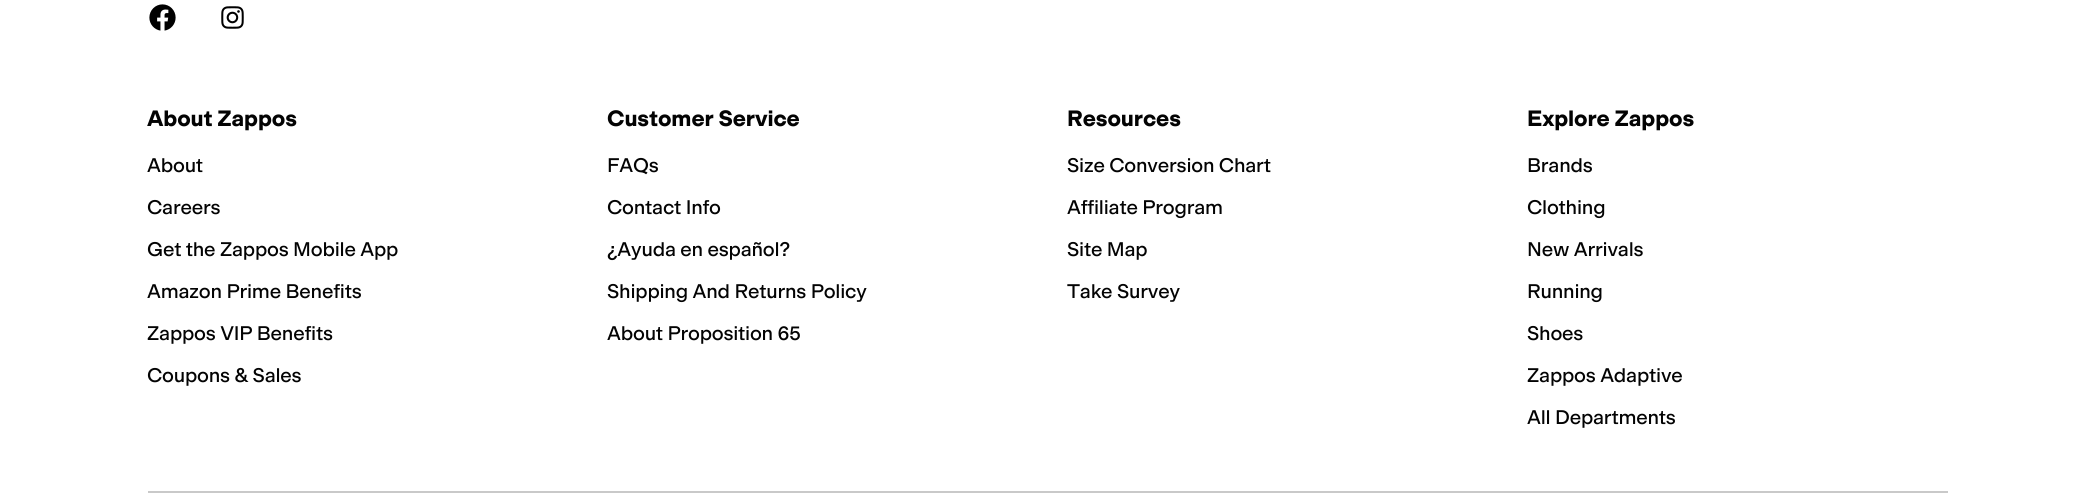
#include <cairo.h>
#include <math.h>
#include <stddef.h>

typedef struct { double x, y; const char *s; } line_t;

static void ink(cairo_t *ctx, unsigned color) {
    cairo_set_source_rgb(ctx, (color >> 16) / 255.0, (color >> 8 & 255) / 255.0, (color & 255) / 255.0);
}

static void write_spaced(cairo_t *ctx, double x, double y, const char *s, double letter, double word) {
    cairo_move_to(ctx, x, y);
    while (*s) {
        char ch[5] = {0};
        int n = 0;
        do ch[n++] = *s++; while ((*s & 0xC0) == 0x80);
        cairo_show_text(ctx, ch);
        cairo_rel_move_to(ctx, letter + word * (*ch == ' '), 0);
    }
}

static void paste(cairo_t *ctx, const char *path, double x, double y, double w, double h) {
    cairo_surface_t *image = cairo_image_surface_create_from_png(path);
    cairo_save(ctx);
    cairo_set_source_surface(ctx, image, x, y);
    cairo_rectangle(ctx, x, y, w, h);
    cairo_fill(ctx);
    cairo_restore(ctx);
    cairo_surface_destroy(image);
}

int main(void) {
    cairo_surface_t *surface = cairo_image_surface_create(CAIRO_FORMAT_RGB24, 2093, 493);
    cairo_t *ctx = cairo_create(surface);
    cairo_font_options_t *options = cairo_font_options_create();
    cairo_font_options_set_hint_metrics(options, CAIRO_HINT_METRICS_OFF);
    cairo_font_options_set_hint_style(options, CAIRO_HINT_STYLE_NONE);
    cairo_set_font_options(ctx, options);
    cairo_set_miter_limit(ctx, 4);
    ink(ctx, 0xFFFFFF);
    cairo_paint(ctx);
    paste(ctx, "media/1.png", 149, 4, 27, 27);
    paste(ctx, "media/2.png", 221, 6, 23, 23);
    cairo_select_font_face(ctx, "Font", CAIRO_FONT_SLANT_NORMAL, CAIRO_FONT_WEIGHT_BOLD);
    cairo_set_font_size(ctx, 22.5);
    ink(ctx, 0x030303);
    write_spaced(ctx, 147, 126, "About Zappos", -0.1, 0);
    cairo_select_font_face(ctx, "Font", CAIRO_FONT_SLANT_NORMAL, CAIRO_FONT_WEIGHT_NORMAL);
    cairo_set_font_size(ctx, 20);
    {
        static const line_t items[] = {
            {147, 172, "About"},
            {147, 214, "Careers"},
            {147, 256, "Get the Zappos Mobile App"},
            {147, 298, "Amazon Prime Benefits"},
            {147, 340, "Zappos VIP Benefits"},
            {147, 382, "Coupons & Sales"},
        };
        for (size_t i = 0; i < sizeof items / sizeof *items; i++) {
            write_spaced(ctx, items[i].x, items[i].y, items[i].s, -0.2, 0);
        }
    }
    cairo_select_font_face(ctx, "Font", CAIRO_FONT_SLANT_NORMAL, CAIRO_FONT_WEIGHT_BOLD);
    cairo_set_font_size(ctx, 22.5);
    write_spaced(ctx, 607, 126, "Customer Service", -0.1, 0);
    cairo_select_font_face(ctx, "Font", CAIRO_FONT_SLANT_NORMAL, CAIRO_FONT_WEIGHT_NORMAL);
    cairo_set_font_size(ctx, 20);
    {
        static const line_t items[] = {
            {607, 172, "FAQs"},
            {607, 214, "Contact Info"},
            {607, 256, "¿Ayuda en español?"},
            {607, 298, "Shipping And Returns Policy"},
            {607, 340, "About Proposition 65"},
        };
        for (size_t i = 0; i < sizeof items / sizeof *items; i++) {
            write_spaced(ctx, items[i].x, items[i].y, items[i].s, -0.2, 0);
        }
    }
    cairo_select_font_face(ctx, "Font", CAIRO_FONT_SLANT_NORMAL, CAIRO_FONT_WEIGHT_BOLD);
    cairo_set_font_size(ctx, 22.5);
    write_spaced(ctx, 1067, 126, "Resources", -0.1, 0);
    cairo_select_font_face(ctx, "Font", CAIRO_FONT_SLANT_NORMAL, CAIRO_FONT_WEIGHT_NORMAL);
    cairo_set_font_size(ctx, 20);
    {
        static const line_t items[] = {
            {1067, 172, "Size Conversion Chart"},
            {1067, 214, "Affiliate Program"},
            {1067, 256, "Site Map"},
            {1067, 298, "Take Survey"},
        };
        for (size_t i = 0; i < sizeof items / sizeof *items; i++) {
            write_spaced(ctx, items[i].x, items[i].y, items[i].s, -0.2, 0);
        }
    }
    cairo_select_font_face(ctx, "Font", CAIRO_FONT_SLANT_NORMAL, CAIRO_FONT_WEIGHT_BOLD);
    cairo_set_font_size(ctx, 22.5);
    write_spaced(ctx, 1527, 126, "Explore Zappos", -0.1, 0);
    cairo_select_font_face(ctx, "Font", CAIRO_FONT_SLANT_NORMAL, CAIRO_FONT_WEIGHT_NORMAL);
    cairo_set_font_size(ctx, 20);
    {
        static const line_t items[] = {
            {1527, 172, "Brands"},
            {1527, 214, "Clothing"},
            {1527, 256, "New Arrivals"},
            {1527, 298, "Running"},
            {1527, 340, "Shoes"},
            {1527, 382, "Zappos Adaptive"},
            {1527, 424, "All Departments"},
        };
        for (size_t i = 0; i < sizeof items / sizeof *items; i++) {
            write_spaced(ctx, items[i].x, items[i].y, items[i].s, -0.2, 0);
        }
    }
    ink(ctx, 0xC9C9C9);
    cairo_rectangle(ctx, 148, 491, 1800, 2);
    cairo_fill(ctx);
    cairo_surface_write_to_png(surface, "image.png");
    cairo_font_options_destroy(options);
    cairo_destroy(ctx);
    cairo_surface_destroy(surface);
    return 0;
}
